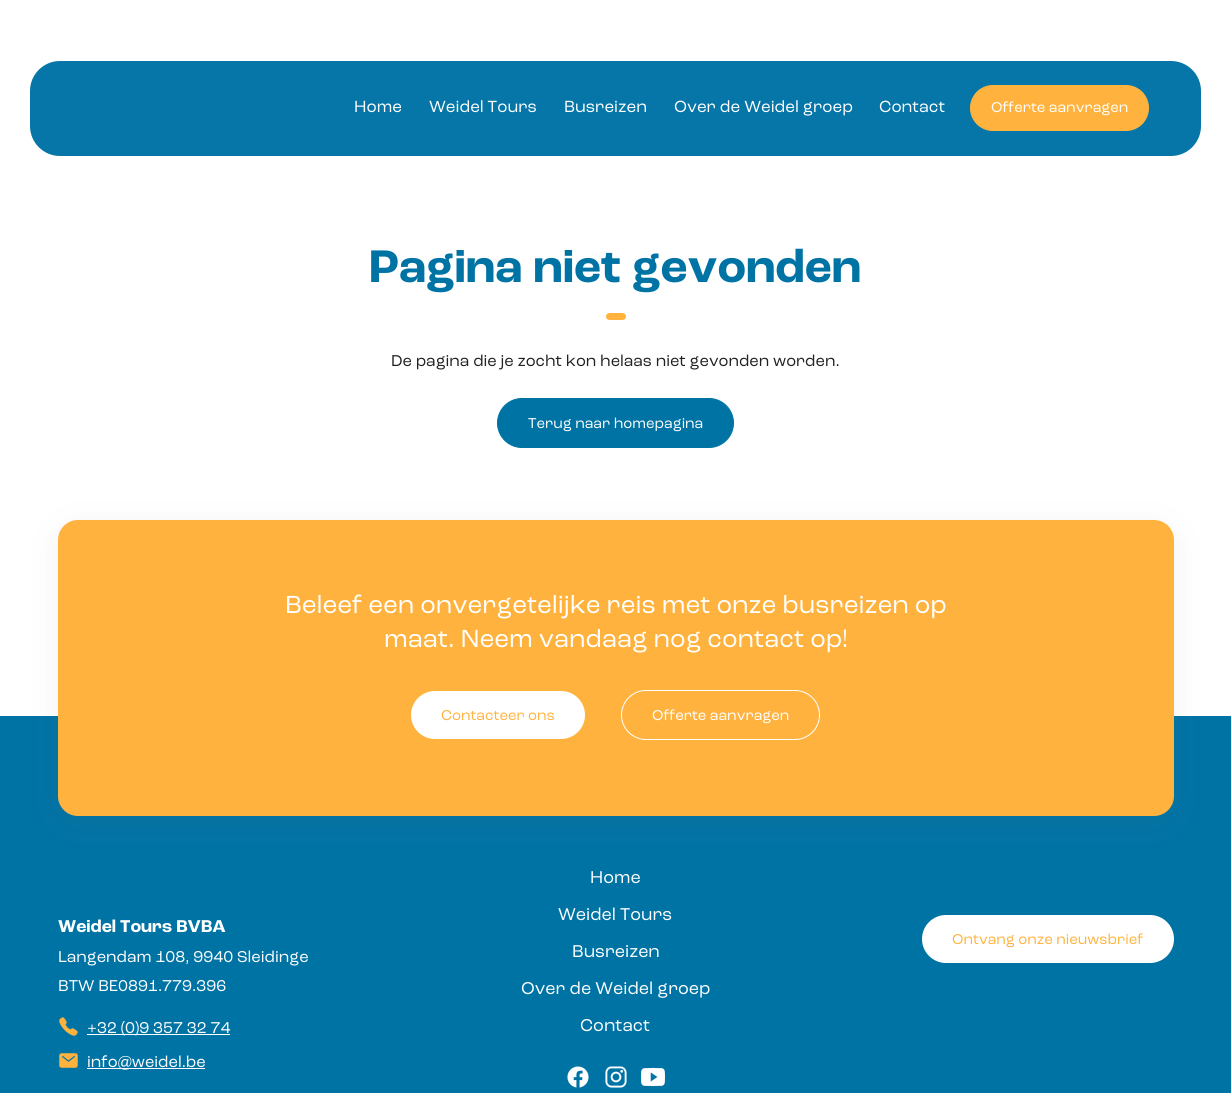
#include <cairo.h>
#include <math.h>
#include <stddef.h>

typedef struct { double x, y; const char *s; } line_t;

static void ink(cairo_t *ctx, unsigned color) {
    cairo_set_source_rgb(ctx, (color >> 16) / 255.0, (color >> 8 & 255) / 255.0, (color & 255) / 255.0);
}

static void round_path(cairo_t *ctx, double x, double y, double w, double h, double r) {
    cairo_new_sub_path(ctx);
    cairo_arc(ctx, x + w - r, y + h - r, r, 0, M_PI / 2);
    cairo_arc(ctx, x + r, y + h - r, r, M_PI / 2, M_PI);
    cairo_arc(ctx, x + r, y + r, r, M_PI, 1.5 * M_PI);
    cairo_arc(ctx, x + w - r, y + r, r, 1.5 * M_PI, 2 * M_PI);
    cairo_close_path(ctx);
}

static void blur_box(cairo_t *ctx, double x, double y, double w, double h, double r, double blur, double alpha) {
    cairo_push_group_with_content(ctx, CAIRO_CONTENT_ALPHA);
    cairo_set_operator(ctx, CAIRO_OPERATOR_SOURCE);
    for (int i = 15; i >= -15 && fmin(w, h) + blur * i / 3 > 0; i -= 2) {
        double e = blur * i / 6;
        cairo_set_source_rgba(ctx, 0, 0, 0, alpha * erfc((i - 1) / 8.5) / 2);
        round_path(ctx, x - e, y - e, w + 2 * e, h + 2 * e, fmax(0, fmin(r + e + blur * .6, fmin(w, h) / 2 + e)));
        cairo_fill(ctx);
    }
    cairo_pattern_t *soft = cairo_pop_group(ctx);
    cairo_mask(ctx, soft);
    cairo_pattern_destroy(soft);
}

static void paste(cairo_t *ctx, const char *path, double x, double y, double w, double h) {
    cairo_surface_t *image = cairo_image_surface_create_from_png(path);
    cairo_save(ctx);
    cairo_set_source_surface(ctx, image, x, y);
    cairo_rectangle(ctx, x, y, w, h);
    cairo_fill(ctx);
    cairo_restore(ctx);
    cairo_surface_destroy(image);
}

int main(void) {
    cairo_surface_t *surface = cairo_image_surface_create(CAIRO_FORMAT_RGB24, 1231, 1093);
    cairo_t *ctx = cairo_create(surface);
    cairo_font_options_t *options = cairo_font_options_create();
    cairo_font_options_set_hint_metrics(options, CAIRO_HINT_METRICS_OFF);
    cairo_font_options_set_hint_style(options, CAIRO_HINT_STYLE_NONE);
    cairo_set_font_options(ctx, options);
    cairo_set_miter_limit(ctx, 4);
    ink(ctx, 0xFFFFFF);
    cairo_paint(ctx);
    ink(ctx, 0x0576A7);
    round_path(ctx, 30, 61, 1171, 95, 30);
    cairo_fill(ctx);
    cairo_select_font_face(ctx, "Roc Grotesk", CAIRO_FONT_SLANT_NORMAL, CAIRO_FONT_WEIGHT_NORMAL);
    cairo_set_font_size(ctx, 17);
    ink(ctx, 0xFFFFFF);
    {
        static const line_t items[] = {
            {354, 112, "Home"},
            {429, 112, "Weidel Tours"},
            {564, 112, "Busreizen"},
            {674, 112, "Over de Weidel groep"},
            {879, 112, "Contact"},
        };
        for (size_t i = 0; i < sizeof items / sizeof *items; i++) {
            cairo_move_to(ctx, items[i].x, items[i].y);
            cairo_show_text(ctx, items[i].s);
        }
    }
    ink(ctx, 0xFFB33E);
    round_path(ctx, 970.5, 85.5, 178, 45, 22.5);
    cairo_fill_preserve(ctx);
    cairo_set_line_width(ctx, 1);
    cairo_stroke(ctx);
    cairo_set_font_size(ctx, 15);
    ink(ctx, 0xFFFFFF);
    cairo_move_to(ctx, 991, 112);
    cairo_show_text(ctx, "Offerte aanvragen");
    cairo_select_font_face(ctx, "Roc Grotesk", CAIRO_FONT_SLANT_NORMAL, CAIRO_FONT_WEIGHT_BOLD);
    cairo_set_font_size(ctx, 48);
    ink(ctx, 0x0073A5);
    cairo_move_to(ctx, 369, 282);
    cairo_show_text(ctx, "Pagina niet gevonden");
    ink(ctx, 0xFFB33E);
    round_path(ctx, 606, 313, 20, 7, 3.5);
    cairo_fill(ctx);
    cairo_select_font_face(ctx, "Roc Grotesk", CAIRO_FONT_SLANT_NORMAL, CAIRO_FONT_WEIGHT_NORMAL);
    cairo_set_font_size(ctx, 16.5);
    ink(ctx, 0x212121);
    cairo_move_to(ctx, 391, 366);
    cairo_show_text(ctx, "De pagina die je zocht kon helaas niet gevonden worden.");
    ink(ctx, 0x0073A5);
    round_path(ctx, 497.5, 398.5, 236, 49, 24.5);
    cairo_fill_preserve(ctx);
    cairo_stroke(ctx);
    cairo_set_font_size(ctx, 15);
    ink(ctx, 0xFFFFFF);
    cairo_move_to(ctx, 528, 428);
    cairo_show_text(ctx, "Terug naar homepagina");
    ink(ctx, 0x0073A5);
    cairo_rectangle(ctx, 0, 716, 1231, 377);
    cairo_fill(ctx);
    ink(ctx, 0x64646F);
    blur_box(ctx, 58, 527, 1116, 296, 20, 14.5, 0.1);
    ink(ctx, 0xFFB33E);
    round_path(ctx, 58, 520, 1116, 296, 20);
    cairo_fill(ctx);
    cairo_set_font_size(ctx, 26);
    ink(ctx, 0xFFFFFF);
    cairo_move_to(ctx, 285, 613);
    cairo_show_text(ctx, "Beleef een onvergetelijke reis met onze busreizen op");
    cairo_move_to(ctx, 384, 647);
    cairo_show_text(ctx, "maat. Neem vandaag nog contact op!");
    round_path(ctx, 411, 691, 174, 48, 24);
    cairo_fill(ctx);
    cairo_set_font_size(ctx, 15);
    ink(ctx, 0xFFB33E);
    cairo_move_to(ctx, 441, 720);
    cairo_show_text(ctx, "Contacteer ons");
    round_path(ctx, 621.5, 690.5, 198, 49, 24.5);
    ink(ctx, 0xFFFFFF);
    cairo_stroke(ctx);
    cairo_move_to(ctx, 652, 720);
    cairo_show_text(ctx, "Offerte aanvragen");
    cairo_select_font_face(ctx, "Roc Grotesk", CAIRO_FONT_SLANT_NORMAL, CAIRO_FONT_WEIGHT_BOLD);
    cairo_set_font_size(ctx, 18);
    cairo_move_to(ctx, 58, 932);
    cairo_show_text(ctx, "Weidel Tours BVBA");
    cairo_select_font_face(ctx, "Roc Grotesk", CAIRO_FONT_SLANT_NORMAL, CAIRO_FONT_WEIGHT_NORMAL);
    cairo_set_font_size(ctx, 16.5);
    cairo_move_to(ctx, 58, 962);
    cairo_show_text(ctx, "Langendam 108, 9940 Sleidinge");
    cairo_move_to(ctx, 58, 991);
    cairo_show_text(ctx, "BTW BE0891.779.396");
    paste(ctx, "media/1.png", 59, 1017, 19, 19);
    cairo_rectangle(ctx, 87, 1034, 143, 1);
    cairo_fill(ctx);
    cairo_move_to(ctx, 87, 1033);
    cairo_show_text(ctx, "+32 (0)9 357 32 74");
    paste(ctx, "media/2.png", 59, 1053, 19, 15);
    cairo_rectangle(ctx, 87, 1068, 118, 1);
    cairo_fill(ctx);
    cairo_move_to(ctx, 87, 1067);
    cairo_show_text(ctx, "info@weidel.be");
    cairo_set_font_size(ctx, 18);
    {
        static const line_t items[] = {
            {590, 883, "Home"},
            {558, 920, "Weidel Tours"},
            {572, 957, "Busreizen"},
            {521, 994, "Over de Weidel groep"},
            {580, 1031, "Contact"},
        };
        for (size_t i = 0; i < sizeof items / sizeof *items; i++) {
            cairo_move_to(ctx, items[i].x, items[i].y);
            cairo_show_text(ctx, items[i].s);
        }
    }
    paste(ctx, "media/3.png", 567, 1066, 22, 22);
    paste(ctx, "media/4.png", 605, 1066, 22, 22);
    paste(ctx, "media/5.png", 641, 1067, 24, 20);
    round_path(ctx, 922, 915, 252, 48, 24);
    cairo_fill(ctx);
    cairo_set_font_size(ctx, 15);
    ink(ctx, 0xFFB33E);
    cairo_move_to(ctx, 952, 944);
    cairo_show_text(ctx, "Ontvang onze nieuwsbrief");
    cairo_surface_write_to_png(surface, "image.png");
    cairo_font_options_destroy(options);
    cairo_destroy(ctx);
    cairo_surface_destroy(surface);
    return 0;
}
